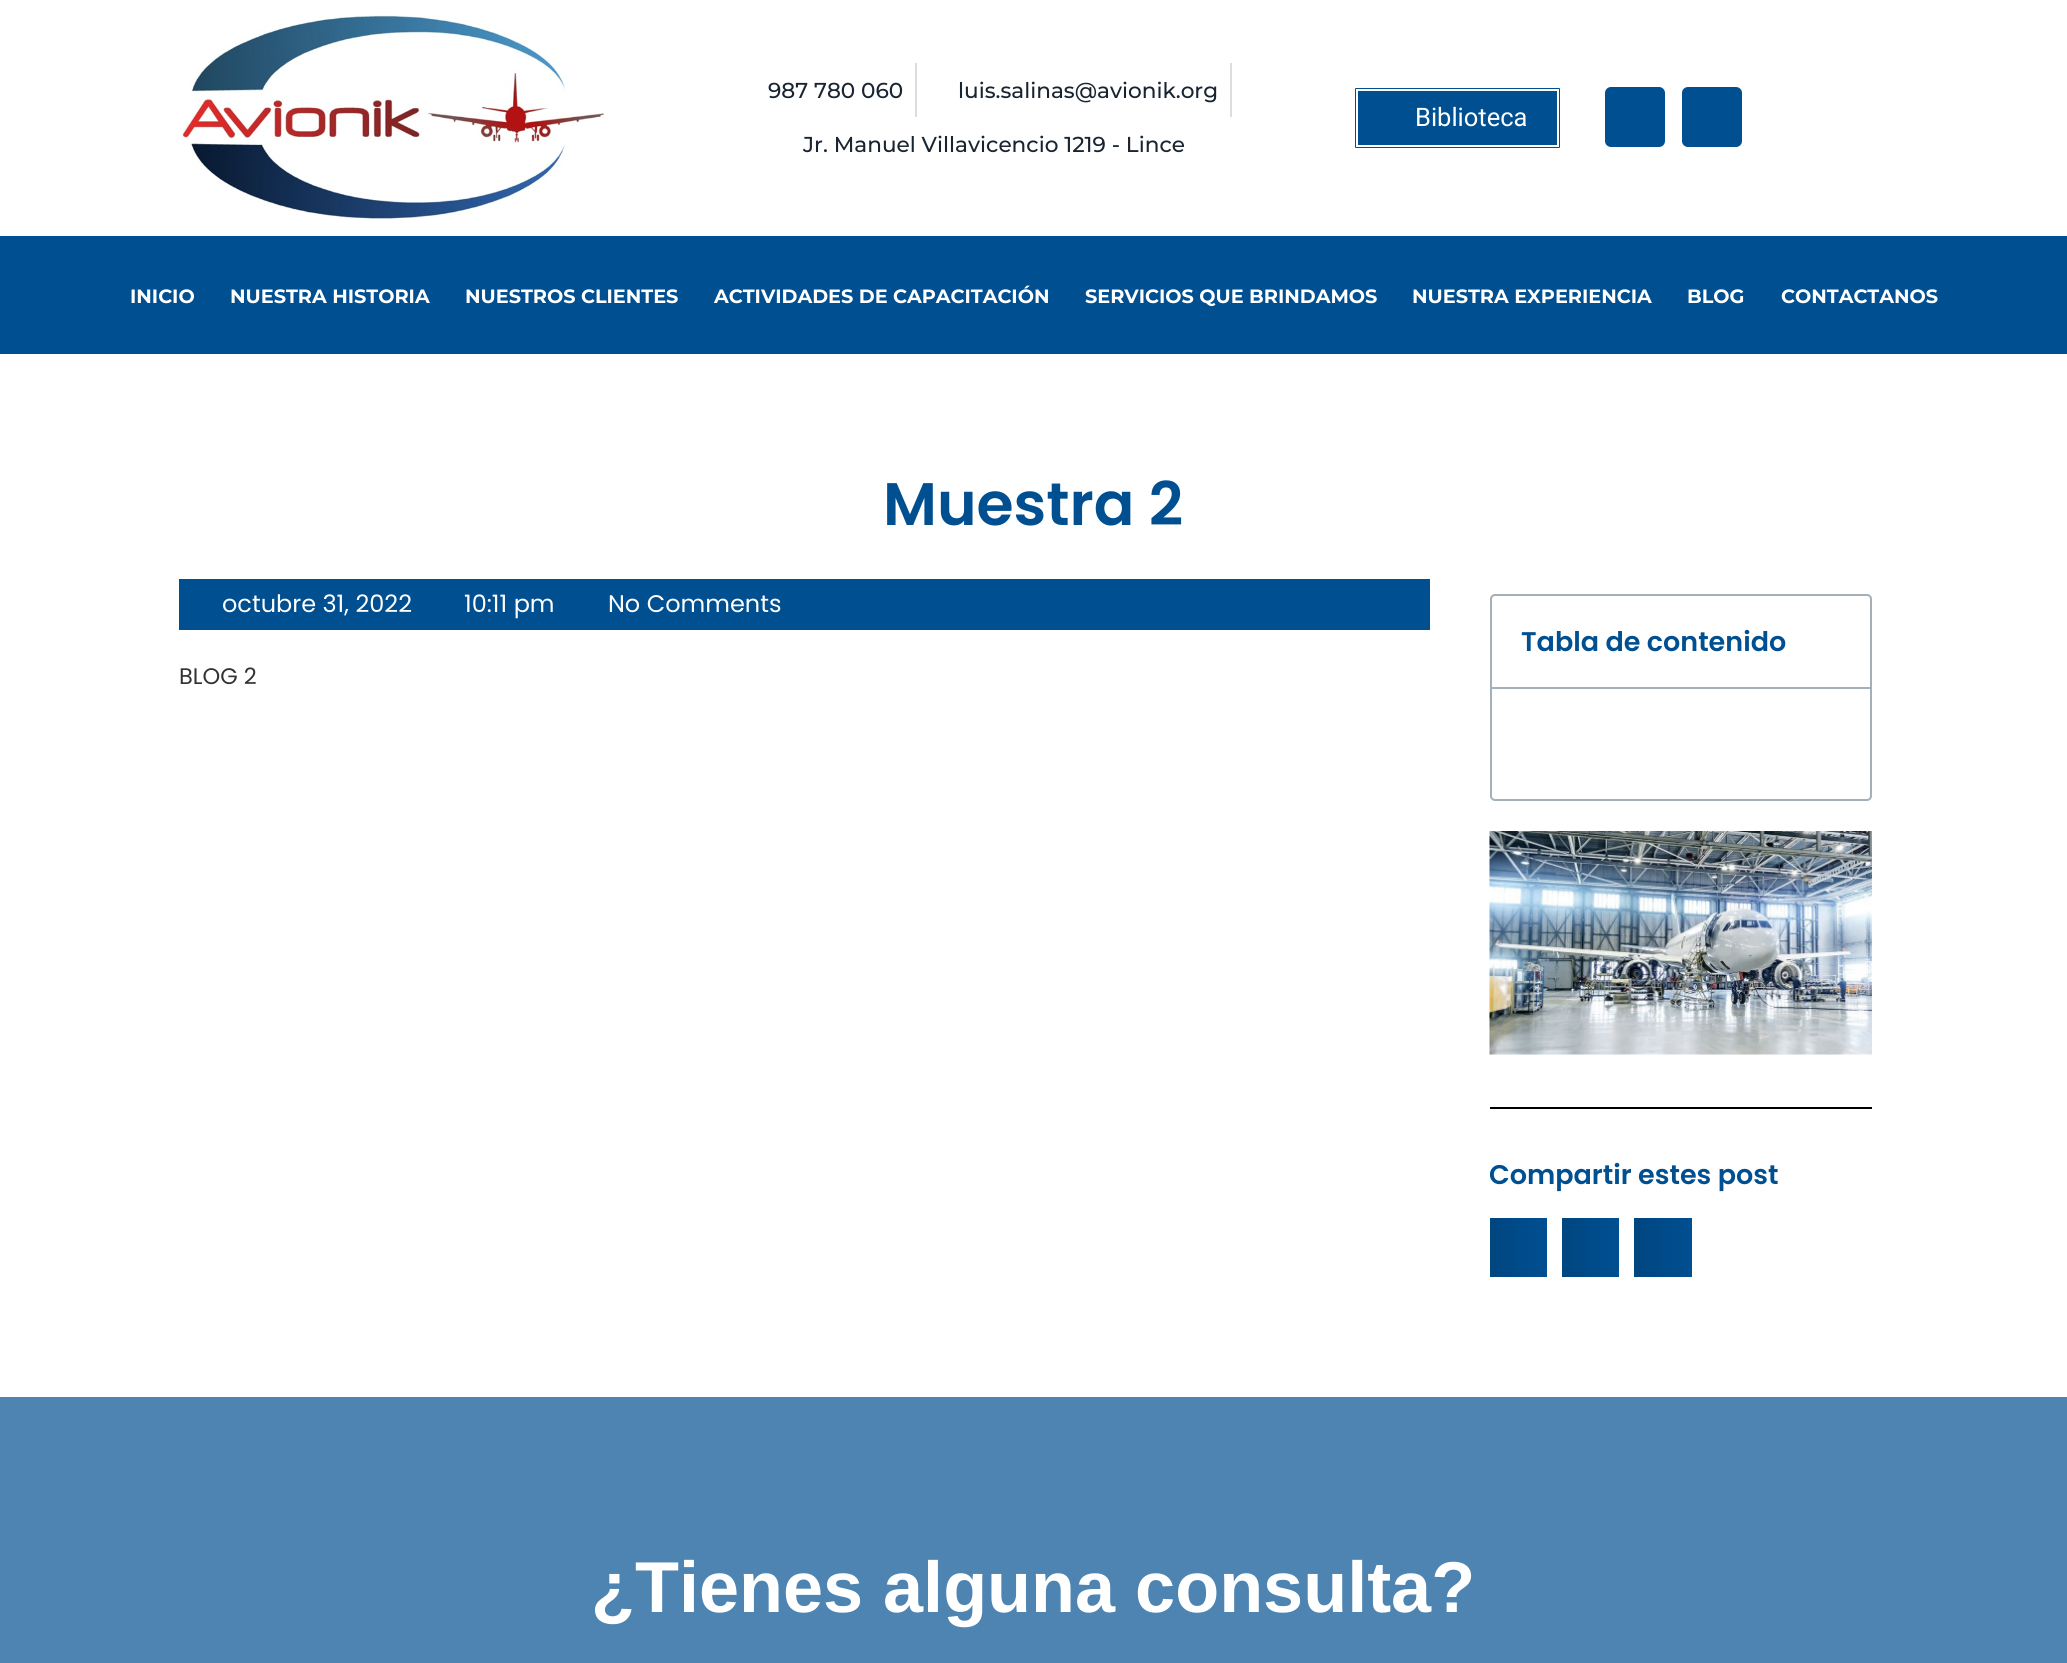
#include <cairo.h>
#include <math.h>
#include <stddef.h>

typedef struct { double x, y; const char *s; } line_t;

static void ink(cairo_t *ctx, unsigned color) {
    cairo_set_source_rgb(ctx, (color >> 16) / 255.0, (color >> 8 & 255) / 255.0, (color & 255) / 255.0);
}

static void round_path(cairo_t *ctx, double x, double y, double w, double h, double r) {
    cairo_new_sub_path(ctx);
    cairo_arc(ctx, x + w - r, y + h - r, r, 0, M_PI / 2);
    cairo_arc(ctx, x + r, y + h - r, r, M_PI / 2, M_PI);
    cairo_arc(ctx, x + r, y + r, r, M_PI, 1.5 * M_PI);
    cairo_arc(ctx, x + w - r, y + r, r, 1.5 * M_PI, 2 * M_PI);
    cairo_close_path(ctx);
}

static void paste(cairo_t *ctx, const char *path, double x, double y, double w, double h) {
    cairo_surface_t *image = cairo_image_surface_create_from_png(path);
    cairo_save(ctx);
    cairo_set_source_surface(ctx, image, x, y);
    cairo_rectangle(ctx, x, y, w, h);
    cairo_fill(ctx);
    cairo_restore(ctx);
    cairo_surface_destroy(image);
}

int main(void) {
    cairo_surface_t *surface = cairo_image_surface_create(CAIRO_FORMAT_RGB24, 2067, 1663);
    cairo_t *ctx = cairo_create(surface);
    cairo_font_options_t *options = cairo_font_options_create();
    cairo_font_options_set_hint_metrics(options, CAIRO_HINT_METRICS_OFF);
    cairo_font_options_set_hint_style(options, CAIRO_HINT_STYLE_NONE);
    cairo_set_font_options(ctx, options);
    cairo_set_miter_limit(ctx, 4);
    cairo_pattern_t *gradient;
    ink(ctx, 0xFFFFFF);
    cairo_paint(ctx);
    paste(ctx, "media/1.png", 182, 15, 422, 204);
    cairo_select_font_face(ctx, "Montserrat Medium", CAIRO_FONT_SLANT_NORMAL, CAIRO_FONT_WEIGHT_NORMAL);
    cairo_set_font_size(ctx, 21.6);
    ink(ctx, 0x192431);
    cairo_move_to(ctx, 768, 98);
    cairo_show_text(ctx, "987 780 060");
    ink(ctx, 0xDDDDDD);
    cairo_rectangle(ctx, 915, 63, 2, 54);
    cairo_fill(ctx);
    ink(ctx, 0x192431);
    cairo_move_to(ctx, 958, 98);
    cairo_show_text(ctx, "luis.salinas@avionik.org");
    ink(ctx, 0xDDDDDD);
    cairo_rectangle(ctx, 1230, 63, 2, 54);
    cairo_fill(ctx);
    ink(ctx, 0x192431);
    cairo_move_to(ctx, 803, 152);
    cairo_show_text(ctx, "Jr. Manuel Villavicencio 1219 - Lince");
    ink(ctx, 0x004F91);
    round_path(ctx, 1354, 87, 207, 62, 2);
    cairo_fill_preserve(ctx);
    ink(ctx, 0xFFFFFF);
    cairo_stroke(ctx);
    cairo_rectangle(ctx, 1357, 90, 201, 56);
    cairo_stroke(ctx);
    cairo_select_font_face(ctx, "Roboto", CAIRO_FONT_SLANT_NORMAL, CAIRO_FONT_WEIGHT_NORMAL);
    cairo_set_font_size(ctx, 25.5);
    cairo_move_to(ctx, 1415, 126);
    cairo_show_text(ctx, "Biblioteca");
    ink(ctx, 0x004F91);
    round_path(ctx, 1605, 87, 60, 60, 6);
    cairo_fill(ctx);
    round_path(ctx, 1682, 87, 60, 60, 6);
    cairo_fill(ctx);
    cairo_rectangle(ctx, 0, 236, 2067, 118);
    cairo_fill(ctx);
    cairo_select_font_face(ctx, "Montserrat", CAIRO_FONT_SLANT_NORMAL, CAIRO_FONT_WEIGHT_BOLD);
    cairo_set_font_size(ctx, 19.25);
    ink(ctx, 0xFFFFFF);
    {
        static const line_t items[] = {
            {130, 303, "INICIO"},
            {230, 303, "NUESTRA HISTORIA"},
            {465, 303, "NUESTROS CLIENTES"},
            {714, 303, "ACTIVIDADES DE CAPACITACIÓN"},
            {1085, 303, "SERVICIOS QUE BRINDAMOS"},
            {1412, 303, "NUESTRA EXPERIENCIA"},
            {1687, 303, "BLOG"},
            {1781, 303, "CONTACTANOS"},
        };
        for (size_t i = 0; i < sizeof items / sizeof *items; i++) {
            cairo_move_to(ctx, items[i].x, items[i].y);
            cairo_show_text(ctx, items[i].s);
        }
    }
    cairo_select_font_face(ctx, "Poppins SemiBold", CAIRO_FONT_SLANT_NORMAL, CAIRO_FONT_WEIGHT_NORMAL);
    cairo_set_font_size(ctx, 60);
    ink(ctx, 0x004F91);
    cairo_move_to(ctx, 883, 525);
    cairo_show_text(ctx, "Muestra 2");
    cairo_rectangle(ctx, 179, 579, 1251, 51);
    cairo_fill(ctx);
    cairo_select_font_face(ctx, "Poppins", CAIRO_FONT_SLANT_NORMAL, CAIRO_FONT_WEIGHT_NORMAL);
    cairo_set_font_size(ctx, 24);
    ink(ctx, 0xFFFFFF);
    {
        static const line_t items[] = {
            {222, 612, "octubre 31, 2022"},
            {464, 612, "10:11 pm"},
            {608, 612, "No Comments"},
        };
        for (size_t i = 0; i < sizeof items / sizeof *items; i++) {
            cairo_move_to(ctx, items[i].x, items[i].y);
            cairo_show_text(ctx, items[i].s);
        }
    }
    cairo_set_font_size(ctx, 22.5);
    ink(ctx, 0x333333);
    cairo_move_to(ctx, 179, 684);
    cairo_show_text(ctx, "BLOG 2");
    round_path(ctx, 1491, 595, 380, 205, 4);
    ink(ctx, 0xA4AFB7);
    cairo_stroke(ctx);
    cairo_rectangle(ctx, 1491, 687, 380, 2);
    cairo_fill(ctx);
    cairo_select_font_face(ctx, "Poppins SemiBold", CAIRO_FONT_SLANT_NORMAL, CAIRO_FONT_WEIGHT_NORMAL);
    cairo_set_font_size(ctx, 27);
    ink(ctx, 0x004F91);
    cairo_move_to(ctx, 1521, 651);
    cairo_show_text(ctx, "Tabla de contenido");
    paste(ctx, "media/2.png", 1489, 831, 383, 224);
    ink(ctx, 0x000000);
    cairo_rectangle(ctx, 1490, 1107, 382, 2);
    cairo_fill(ctx);
    ink(ctx, 0x004F91);
    cairo_move_to(ctx, 1489, 1184);
    cairo_show_text(ctx, "Compartir estes post");
    gradient = cairo_pattern_create_linear(1490, 1247, 1547, 1247);
    cairo_pattern_add_color_stop_rgba(gradient, 0, 0, 0.275, 0.502, 1);
    cairo_pattern_add_color_stop_rgba(gradient, 1, 0, 0.31, 0.569, 1);
    cairo_set_source(ctx, gradient);
    cairo_pattern_destroy(gradient);
    cairo_rectangle(ctx, 1490, 1218, 57, 59);
    cairo_fill(ctx);
    gradient = cairo_pattern_create_linear(1562, 1247, 1619, 1247);
    cairo_pattern_add_color_stop_rgba(gradient, 0, 0, 0.275, 0.502, 1);
    cairo_pattern_add_color_stop_rgba(gradient, 1, 0, 0.31, 0.569, 1);
    cairo_set_source(ctx, gradient);
    cairo_pattern_destroy(gradient);
    cairo_rectangle(ctx, 1562, 1218, 57, 59);
    cairo_fill(ctx);
    gradient = cairo_pattern_create_linear(1634, 1247, 1692, 1247);
    cairo_pattern_add_color_stop_rgba(gradient, 0, 0, 0.275, 0.502, 1);
    cairo_pattern_add_color_stop_rgba(gradient, 1, 0, 0.31, 0.569, 1);
    cairo_set_source(ctx, gradient);
    cairo_pattern_destroy(gradient);
    cairo_rectangle(ctx, 1634, 1218, 58, 59);
    cairo_fill(ctx);
    ink(ctx, 0x4D84B2);
    cairo_rectangle(ctx, 0, 1397, 2067, 266);
    cairo_fill(ctx);
    cairo_select_font_face(ctx, "Liberation Sans", CAIRO_FONT_SLANT_NORMAL, CAIRO_FONT_WEIGHT_BOLD);
    cairo_set_font_size(ctx, 72);
    ink(ctx, 0xFFFFFF);
    cairo_move_to(ctx, 591, 1612);
    cairo_show_text(ctx, "¿Tienes alguna consulta?");
    cairo_surface_write_to_png(surface, "image.png");
    cairo_font_options_destroy(options);
    cairo_destroy(ctx);
    cairo_surface_destroy(surface);
    return 0;
}
